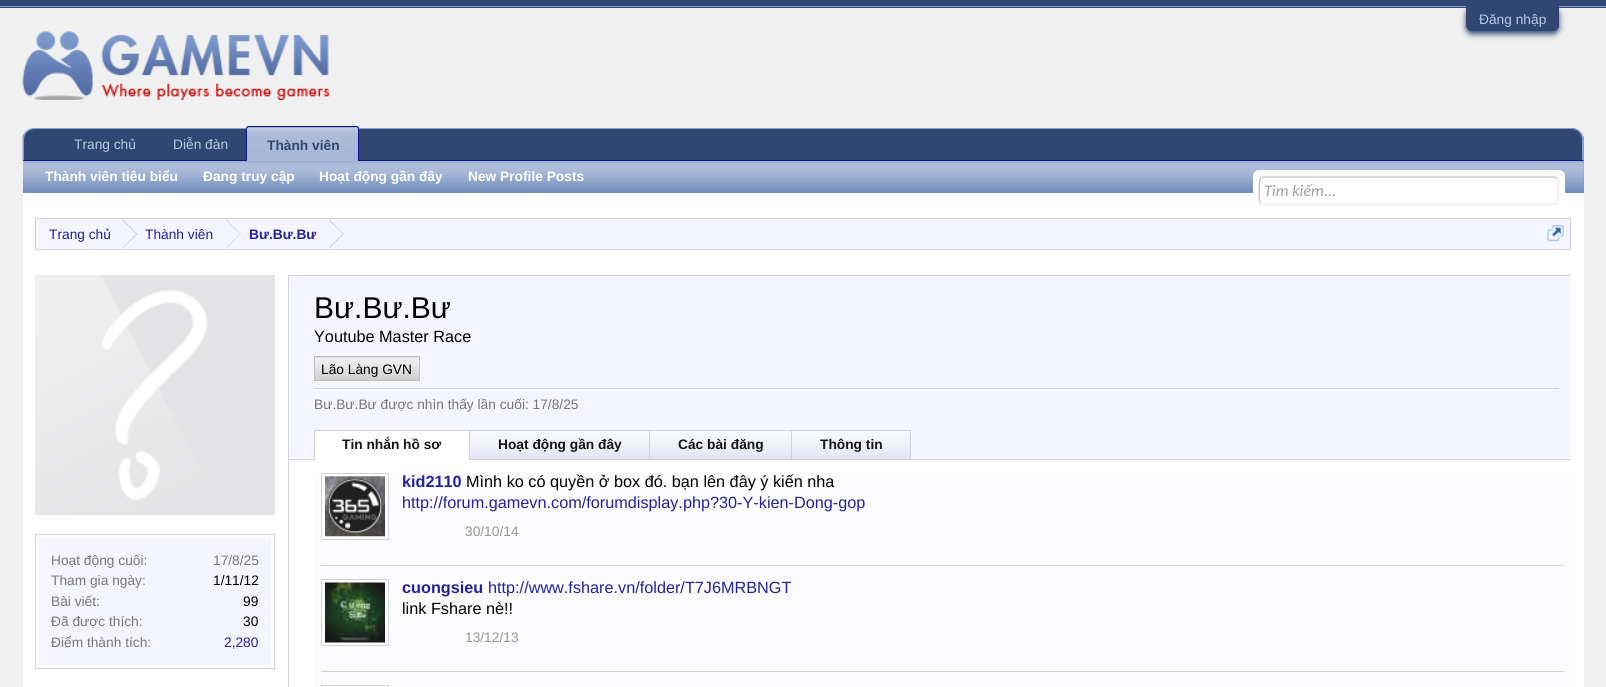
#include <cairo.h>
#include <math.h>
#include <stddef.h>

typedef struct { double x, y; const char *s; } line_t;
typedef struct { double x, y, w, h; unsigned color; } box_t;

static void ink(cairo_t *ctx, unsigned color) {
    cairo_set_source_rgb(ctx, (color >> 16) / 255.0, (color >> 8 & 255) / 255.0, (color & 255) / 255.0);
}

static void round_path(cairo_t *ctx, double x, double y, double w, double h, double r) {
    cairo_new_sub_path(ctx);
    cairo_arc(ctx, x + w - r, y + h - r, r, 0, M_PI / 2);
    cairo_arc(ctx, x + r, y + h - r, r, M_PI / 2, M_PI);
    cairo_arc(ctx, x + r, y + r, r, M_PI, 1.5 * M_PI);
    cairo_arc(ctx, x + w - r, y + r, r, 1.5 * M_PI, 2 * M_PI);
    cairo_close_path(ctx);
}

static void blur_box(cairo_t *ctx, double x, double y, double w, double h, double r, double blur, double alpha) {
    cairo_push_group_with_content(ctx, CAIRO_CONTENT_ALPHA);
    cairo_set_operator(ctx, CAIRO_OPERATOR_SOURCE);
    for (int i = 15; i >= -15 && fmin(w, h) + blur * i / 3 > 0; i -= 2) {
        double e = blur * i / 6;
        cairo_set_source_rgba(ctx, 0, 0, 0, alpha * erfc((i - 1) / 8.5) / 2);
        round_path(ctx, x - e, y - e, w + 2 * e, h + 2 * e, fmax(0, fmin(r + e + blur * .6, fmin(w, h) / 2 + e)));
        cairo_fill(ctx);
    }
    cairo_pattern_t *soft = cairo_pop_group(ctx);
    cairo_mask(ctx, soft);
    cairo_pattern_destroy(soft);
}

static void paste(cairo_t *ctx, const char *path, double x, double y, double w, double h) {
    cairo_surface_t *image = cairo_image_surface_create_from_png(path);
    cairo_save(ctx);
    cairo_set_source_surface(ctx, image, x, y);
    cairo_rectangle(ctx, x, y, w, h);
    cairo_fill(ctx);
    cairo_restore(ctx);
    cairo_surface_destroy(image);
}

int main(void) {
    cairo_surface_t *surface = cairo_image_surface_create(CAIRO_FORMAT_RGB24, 1606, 687);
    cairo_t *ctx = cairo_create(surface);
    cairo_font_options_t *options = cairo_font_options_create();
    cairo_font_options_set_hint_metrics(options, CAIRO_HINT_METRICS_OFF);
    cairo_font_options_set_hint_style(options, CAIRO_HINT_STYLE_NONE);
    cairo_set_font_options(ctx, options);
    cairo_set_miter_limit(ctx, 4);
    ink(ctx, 0xF0F0F0);
    cairo_paint(ctx);
    ink(ctx, 0x304774);
    cairo_rectangle(ctx, 0, 0, 1606, 8);
    cairo_fill(ctx);
    ink(ctx, 0x899FC5);
    cairo_rectangle(ctx, 0, 6, 1606, 1);
    cairo_fill(ctx);
    ink(ctx, 0x304774);
    blur_box(ctx, 1466, 9, 93, 25, 6, 3, 1);
    ink(ctx, 0x304774);
    cairo_new_path(ctx);
    cairo_move_to(ctx, 1466, 6);
    cairo_line_to(ctx, 1559, 6);
    cairo_line_to(ctx, 1559, 25);
    cairo_curve_to(ctx, 1559, 28.5, 1556.5, 31, 1553, 31);
    cairo_line_to(ctx, 1472, 31);
    cairo_curve_to(ctx, 1468.5, 31, 1466, 28.5, 1466, 25);
    cairo_close_path(ctx);
    cairo_fill(ctx);
    cairo_select_font_face(ctx, "Liberation Sans", CAIRO_FONT_SLANT_NORMAL, CAIRO_FONT_WEIGHT_NORMAL);
    cairo_set_font_size(ctx, 13.75);
    ink(ctx, 0xB8C9E3);
    cairo_move_to(ctx, 1479, 24);
    cairo_show_text(ctx, "Đăng nhập");
    paste(ctx, "media/1.png", 22, 31, 308, 69);
    ink(ctx, 0x304774);
    cairo_new_path(ctx);
    cairo_move_to(ctx, 36, 128);
    cairo_line_to(ctx, 1571, 128);
    cairo_curve_to(ctx, 1578, 128, 1584, 134, 1584, 141);
    cairo_line_to(ctx, 1584, 161);
    cairo_line_to(ctx, 23, 161);
    cairo_line_to(ctx, 23, 141);
    cairo_curve_to(ctx, 23, 134, 29, 128, 36, 128);
    cairo_close_path(ctx);
    cairo_fill(ctx);
    ink(ctx, 0x899FC5);
    cairo_new_path(ctx);
    cairo_move_to(ctx, 35, 128);
    cairo_curve_to(ctx, 32, 128, 28, 129, 26, 131);
    cairo_line_to(ctx, 27, 132);
    cairo_curve_to(ctx, 29, 130, 32, 129, 35, 129);
    cairo_line_to(ctx, 1571, 129);
    cairo_curve_to(ctx, 1574, 129, 1577, 130, 1579, 132);
    cairo_line_to(ctx, 1580, 131);
    cairo_curve_to(ctx, 1578, 129, 1574, 128, 1571, 128);
    cairo_close_path(ctx);
    cairo_fill(ctx);
    cairo_new_path(ctx);
    cairo_move_to(ctx, 1580, 131.5);
    cairo_curve_to(ctx, 1582, 133, 1583, 135, 1584, 137.5);
    cairo_line_to(ctx, 1584, 161);
    cairo_line_to(ctx, 1582, 159.5);
    cairo_line_to(ctx, 1582, 140);
    cairo_curve_to(ctx, 1582, 137, 1581, 134.5, 1579, 132.5);
    cairo_close_path(ctx);
    cairo_fill(ctx);
    ink(ctx, 0x0B198C);
    cairo_new_path(ctx);
    cairo_move_to(ctx, 1584, 161);
    cairo_line_to(ctx, 23, 161);
    cairo_line_to(ctx, 24, 160);
    cairo_line_to(ctx, 1582, 160);
    cairo_close_path(ctx);
    cairo_fill(ctx);
    ink(ctx, 0x899FC5);
    cairo_new_path(ctx);
    cairo_move_to(ctx, 22.5, 136.5);
    cairo_curve_to(ctx, 23, 134.5, 24.5, 132.5, 26, 131);
    cairo_line_to(ctx, 27, 132);
    cairo_curve_to(ctx, 25, 134, 24, 137, 24, 140);
    cairo_line_to(ctx, 24, 160);
    cairo_line_to(ctx, 22.5, 161);
    cairo_close_path(ctx);
    cairo_fill(ctx);
    ink(ctx, 0xB8C9E3);
    cairo_move_to(ctx, 74, 149);
    cairo_show_text(ctx, "Trang chủ");
    cairo_move_to(ctx, 173, 149);
    cairo_show_text(ctx, "Diễn đàn");
    ink(ctx, 0x738FBF);
    cairo_new_path(ctx);
    cairo_move_to(ctx, 248.5, 126);
    cairo_line_to(ctx, 356.5, 126);
    cairo_curve_to(ctx, 358, 126, 359, 127, 359, 128.5);
    cairo_line_to(ctx, 359, 163);
    cairo_line_to(ctx, 246, 163);
    cairo_line_to(ctx, 246, 128.5);
    cairo_curve_to(ctx, 246, 127, 247, 126, 248.5, 126);
    cairo_close_path(ctx);
    cairo_fill(ctx);
    paste(ctx, "media/2.png", 246, 127, 113, 34);
    cairo_new_path(ctx);
    cairo_move_to(ctx, 248.5, 126.5);
    cairo_line_to(ctx, 356.5, 126.5);
    cairo_curve_to(ctx, 357.5, 126.5, 358.5, 127.5, 358.5, 128.5);
    cairo_line_to(ctx, 358.5, 162.5);
    cairo_line_to(ctx, 246.5, 162.5);
    cairo_line_to(ctx, 246.5, 128.5);
    cairo_curve_to(ctx, 246.5, 127.5, 247.5, 126.5, 248.5, 126.5);
    cairo_close_path(ctx);
    ink(ctx, 0x0B198C);
    cairo_set_line_width(ctx, 1);
    cairo_stroke(ctx);
    cairo_select_font_face(ctx, "Liberation Sans", CAIRO_FONT_SLANT_NORMAL, CAIRO_FONT_WEIGHT_BOLD);
    ink(ctx, 0x304774);
    cairo_move_to(ctx, 267, 150);
    cairo_show_text(ctx, "Thành viên");
    ink(ctx, 0x738FBF);
    cairo_rectangle(ctx, 23, 161, 1561, 32);
    cairo_fill(ctx);
    paste(ctx, "media/3.png", 23, 161, 1561, 29);
    ink(ctx, 0xFFFFFF);
    {
        static const line_t items[] = {
            {45, 181, "Thành viên tiêu biểu"},
            {203, 181, "Đang truy cập"},
            {319, 181, "Hoạt động gần đây"},
            {468, 181, "New Profile Posts"},
        };
        for (size_t i = 0; i < sizeof items / sizeof *items; i++) {
            cairo_move_to(ctx, items[i].x, items[i].y);
            cairo_show_text(ctx, items[i].s);
        }
    }
    cairo_rectangle(ctx, 23, 193, 1561, 494);
    cairo_fill(ctx);
    ink(ctx, 0xFCFCFF);
    round_path(ctx, 1253, 170, 312, 35, 6);
    cairo_fill(ctx);
    ink(ctx, 0xFFFFFF);
    cairo_rectangle(ctx, 1253, 176, 312, 29);
    cairo_fill(ctx);
    cairo_new_path(ctx);
    cairo_move_to(ctx, 1557, 178);
    cairo_curve_to(ctx, 1559.5, 181, 1558, 193, 1558, 197);
    cairo_curve_to(ctx, 1558, 200, 1558, 204.5, 1554, 204.5);
    cairo_line_to(ctx, 1264, 204.5);
    cairo_line_to(ctx, 1260.5, 203);
    ink(ctx, 0xE9E9E9);
    cairo_set_line_width(ctx, 1.2);
    cairo_stroke(ctx);
    cairo_new_path(ctx);
    cairo_move_to(ctx, 1260.5, 203);
    cairo_curve_to(ctx, 1258, 200.5, 1259.5, 188, 1259.5, 184.5);
    cairo_curve_to(ctx, 1259.5, 181, 1259.5, 177, 1264, 177);
    cairo_line_to(ctx, 1554, 177);
    cairo_line_to(ctx, 1557, 178);
    ink(ctx, 0xC0C0C0);
    cairo_stroke(ctx);
    cairo_select_font_face(ctx, "Carlito", CAIRO_FONT_SLANT_ITALIC, CAIRO_FONT_WEIGHT_NORMAL);
    cairo_set_font_size(ctx, 16.25);
    ink(ctx, 0xA0A0A0);
    cairo_move_to(ctx, 1264, 196);
    cairo_show_text(ctx, "Tìm kiếm...");
    ink(ctx, 0xF5F5FF);
    cairo_rectangle(ctx, 35.5, 218.5, 1535, 31);
    cairo_fill_preserve(ctx);
    ink(ctx, 0xD1D1E1);
    cairo_set_line_width(ctx, 1);
    cairo_stroke(ctx);
    cairo_select_font_face(ctx, "Liberation Sans", CAIRO_FONT_SLANT_NORMAL, CAIRO_FONT_WEIGHT_NORMAL);
    cairo_set_font_size(ctx, 13.75);
    ink(ctx, 0x22229C);
    cairo_move_to(ctx, 49, 239);
    cairo_show_text(ctx, "Trang chủ");
    ink(ctx, 0xD1D1E1);
    cairo_new_path(ctx);
    cairo_move_to(ctx, 122.5, 249);
    cairo_line_to(ctx, 122.5, 219);
    cairo_line_to(ctx, 137.5, 234);
    cairo_close_path(ctx);
    cairo_fill(ctx);
    ink(ctx, 0xF5F5FF);
    cairo_new_path(ctx);
    cairo_move_to(ctx, 121, 249);
    cairo_line_to(ctx, 121, 219);
    cairo_line_to(ctx, 136, 234);
    cairo_close_path(ctx);
    cairo_fill(ctx);
    ink(ctx, 0x22229C);
    cairo_move_to(ctx, 145, 239);
    cairo_show_text(ctx, "Thành viên");
    ink(ctx, 0xD1D1E1);
    cairo_new_path(ctx);
    cairo_move_to(ctx, 226, 249);
    cairo_line_to(ctx, 226, 219);
    cairo_line_to(ctx, 241, 234);
    cairo_close_path(ctx);
    cairo_fill(ctx);
    ink(ctx, 0xF5F5FF);
    cairo_new_path(ctx);
    cairo_move_to(ctx, 225, 249);
    cairo_line_to(ctx, 225, 219);
    cairo_line_to(ctx, 240, 234);
    cairo_close_path(ctx);
    cairo_fill(ctx);
    cairo_select_font_face(ctx, "Liberation Sans", CAIRO_FONT_SLANT_NORMAL, CAIRO_FONT_WEIGHT_BOLD);
    ink(ctx, 0x22229C);
    cairo_move_to(ctx, 249, 239);
    cairo_show_text(ctx, "Bư.Bư.Bư");
    ink(ctx, 0xD1D1E1);
    cairo_new_path(ctx);
    cairo_move_to(ctx, 329, 249);
    cairo_line_to(ctx, 329, 219);
    cairo_line_to(ctx, 344, 234);
    cairo_close_path(ctx);
    cairo_fill(ctx);
    ink(ctx, 0xF5F5FF);
    cairo_new_path(ctx);
    cairo_move_to(ctx, 327.5, 249);
    cairo_line_to(ctx, 327.5, 219);
    cairo_line_to(ctx, 342.5, 234);
    cairo_close_path(ctx);
    cairo_fill(ctx);
    paste(ctx, "media/4.png", 1547, 225, 17, 17);
    paste(ctx, "media/5.png", 35, 275, 240, 240);
    cairo_rectangle(ctx, 35.5, 534.5, 239, 134);
    ink(ctx, 0xD1D1E1);
    cairo_stroke(ctx);
    ink(ctx, 0xF5F5FF);
    cairo_rectangle(ctx, 39, 538, 232, 127);
    cairo_fill(ctx);
    cairo_select_font_face(ctx, "Liberation Sans", CAIRO_FONT_SLANT_NORMAL, CAIRO_FONT_WEIGHT_NORMAL);
    ink(ctx, 0x777777);
    {
        static const line_t items[] = {
            {51, 565, "Hoạt động cuối:"},
            {213, 565, "17/8/25"},
            {51, 585, "Tham gia ngày:"},
        };
        for (size_t i = 0; i < sizeof items / sizeof *items; i++) {
            cairo_move_to(ctx, items[i].x, items[i].y);
            cairo_show_text(ctx, items[i].s);
        }
    }
    ink(ctx, 0x000000);
    cairo_move_to(ctx, 213, 585);
    cairo_show_text(ctx, "1/11/12");
    ink(ctx, 0x777777);
    cairo_move_to(ctx, 51, 606);
    cairo_show_text(ctx, "Bài viết:");
    ink(ctx, 0x000000);
    cairo_move_to(ctx, 243, 606);
    cairo_show_text(ctx, "99");
    ink(ctx, 0x777777);
    cairo_move_to(ctx, 51, 626);
    cairo_show_text(ctx, "Đã được thích:");
    ink(ctx, 0x000000);
    cairo_move_to(ctx, 243, 626);
    cairo_show_text(ctx, "30");
    ink(ctx, 0x777777);
    cairo_move_to(ctx, 51, 647);
    cairo_show_text(ctx, "Điểm thành tích:");
    ink(ctx, 0x22229C);
    cairo_move_to(ctx, 224, 647);
    cairo_show_text(ctx, "2,280");
    {
        static const box_t items[] = {
            {288, 275, 1, 412, 0xD1D1E1},
            {289, 275, 1282, 1, 0xD1D1E1},
            {289, 276, 1282, 183, 0xF5F5FF},
        };
        for (size_t i = 0; i < sizeof items / sizeof *items; i++) {
            ink(ctx, items[i].color);
            cairo_rectangle(ctx, items[i].x, items[i].y, items[i].w, items[i].h);
            cairo_fill(ctx);
        }
    }
    cairo_set_font_size(ctx, 30);
    ink(ctx, 0x000000);
    cairo_move_to(ctx, 314, 318);
    cairo_show_text(ctx, "Bư.Bư.Bư");
    cairo_set_font_size(ctx, 16.25);
    cairo_move_to(ctx, 314, 342);
    cairo_show_text(ctx, "Youtube Master Race");
    ink(ctx, 0xC0C0C0);
    cairo_rectangle(ctx, 315, 357, 104, 23);
    cairo_fill(ctx);
    paste(ctx, "media/6.png", 315, 357, 104, 23);
    cairo_rectangle(ctx, 314.5, 356.5, 105, 24);
    cairo_stroke(ctx);
    cairo_set_font_size(ctx, 13.75);
    ink(ctx, 0x000000);
    cairo_move_to(ctx, 321, 374);
    cairo_show_text(ctx, "Lão Làng GVN");
    ink(ctx, 0xD1D1E1);
    cairo_rectangle(ctx, 314, 388, 1245, 1);
    cairo_fill(ctx);
    ink(ctx, 0x777777);
    cairo_move_to(ctx, 314, 409);
    cairo_show_text(ctx, "Bư.Bư.Bư được nhìn thấy lần cuối: 17/8/25");
    {
        static const box_t items[] = {
            {289, 459, 1282, 1, 0xD1D1E1},
            {315, 431, 154, 29, 0xFFFFFF},
            {314, 430, 597, 1, 0xD1D1E1},
            {314, 430, 1, 30, 0xD1D1E1},
        };
        for (size_t i = 0; i < sizeof items / sizeof *items; i++) {
            ink(ctx, items[i].color);
            cairo_rectangle(ctx, items[i].x, items[i].y, items[i].w, items[i].h);
            cairo_fill(ctx);
        }
    }
    cairo_select_font_face(ctx, "Liberation Sans", CAIRO_FONT_SLANT_NORMAL, CAIRO_FONT_WEIGHT_BOLD);
    ink(ctx, 0x141414);
    cairo_move_to(ctx, 342, 449);
    cairo_show_text(ctx, "Tin nhắn hồ sơ");
    ink(ctx, 0xE1E4F2);
    cairo_rectangle(ctx, 470, 431, 179, 28);
    cairo_fill(ctx);
    paste(ctx, "media/7.png", 470, 431, 179, 25);
    ink(ctx, 0xD1D1E1);
    cairo_rectangle(ctx, 469, 430, 1, 29);
    cairo_fill(ctx);
    ink(ctx, 0x141414);
    cairo_move_to(ctx, 498, 449);
    cairo_show_text(ctx, "Hoạt động gần đây");
    ink(ctx, 0xE1E4F2);
    cairo_rectangle(ctx, 650, 431, 141, 28);
    cairo_fill(ctx);
    paste(ctx, "media/8.png", 650, 431, 141, 25);
    ink(ctx, 0xD1D1E1);
    cairo_rectangle(ctx, 649, 430, 1, 29);
    cairo_fill(ctx);
    ink(ctx, 0x141414);
    cairo_move_to(ctx, 678, 449);
    cairo_show_text(ctx, "Các bài đăng");
    ink(ctx, 0xE1E4F2);
    cairo_rectangle(ctx, 792, 431, 118, 28);
    cairo_fill(ctx);
    paste(ctx, "media/9.png", 792, 431, 118, 25);
    ink(ctx, 0xD1D1E1);
    cairo_rectangle(ctx, 910, 430, 1, 29);
    cairo_fill(ctx);
    cairo_rectangle(ctx, 791, 430, 1, 29);
    cairo_fill(ctx);
    ink(ctx, 0x141414);
    cairo_move_to(ctx, 820, 449);
    cairo_show_text(ctx, "Thông tin");
    ink(ctx, 0xFCFCFF);
    cairo_rectangle(ctx, 314, 473, 1257, 214);
    cairo_fill(ctx);
    ink(ctx, 0xD1D1E1);
    cairo_rectangle(ctx, 321, 565, 1243, 1);
    cairo_fill(ctx);
    ink(ctx, 0xFFFFFF);
    cairo_rectangle(ctx, 321.5, 473.5, 67, 66);
    cairo_fill_preserve(ctx);
    ink(ctx, 0xD1D1E1);
    cairo_stroke(ctx);
    paste(ctx, "media/10.png", 325, 476, 60, 61);
    cairo_set_font_size(ctx, 16.25);
    ink(ctx, 0x22229C);
    cairo_move_to(ctx, 402, 487);
    cairo_show_text(ctx, "kid2110");
    cairo_select_font_face(ctx, "Liberation Sans", CAIRO_FONT_SLANT_NORMAL, CAIRO_FONT_WEIGHT_NORMAL);
    ink(ctx, 0x000000);
    cairo_move_to(ctx, 466, 487);
    cairo_show_text(ctx, "Mình ko có quyền ở box đó. bạn lên đây ý kiến nha");
    ink(ctx, 0x22229C);
    cairo_move_to(ctx, 402, 508);
    cairo_show_text(ctx, "http://forum.gamevn.com/forumdisplay.php?30-Y-kien-Dong-gop");
    cairo_set_font_size(ctx, 13.75);
    ink(ctx, 0x969696);
    cairo_move_to(ctx, 465, 536);
    cairo_show_text(ctx, "30/10/14");
    ink(ctx, 0xD1D1E1);
    cairo_rectangle(ctx, 321, 671, 1243, 1);
    cairo_fill(ctx);
    ink(ctx, 0xFFFFFF);
    cairo_rectangle(ctx, 321.5, 579.5, 67, 66);
    cairo_fill_preserve(ctx);
    ink(ctx, 0xD1D1E1);
    cairo_stroke(ctx);
    paste(ctx, "media/11.png", 325, 582, 60, 61);
    cairo_select_font_face(ctx, "Liberation Sans", CAIRO_FONT_SLANT_NORMAL, CAIRO_FONT_WEIGHT_BOLD);
    cairo_set_font_size(ctx, 16.25);
    ink(ctx, 0x22229C);
    cairo_move_to(ctx, 402, 593);
    cairo_show_text(ctx, "cuongsieu");
    cairo_select_font_face(ctx, "Liberation Sans", CAIRO_FONT_SLANT_NORMAL, CAIRO_FONT_WEIGHT_NORMAL);
    cairo_move_to(ctx, 488, 593);
    cairo_show_text(ctx, "http://www.fshare.vn/folder/T7J6MRBNGT");
    ink(ctx, 0x000000);
    cairo_move_to(ctx, 402, 614);
    cairo_show_text(ctx, "link Fshare nè!!");
    cairo_set_font_size(ctx, 13.75);
    ink(ctx, 0x969696);
    cairo_move_to(ctx, 465, 642);
    cairo_show_text(ctx, "13/12/13");
    ink(ctx, 0xFFFFFF);
    cairo_rectangle(ctx, 321.5, 685.5, 67, 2);
    cairo_fill_preserve(ctx);
    ink(ctx, 0xD1D1E1);
    cairo_stroke(ctx);
    cairo_surface_write_to_png(surface, "image.png");
    cairo_font_options_destroy(options);
    cairo_destroy(ctx);
    cairo_surface_destroy(surface);
    return 0;
}
